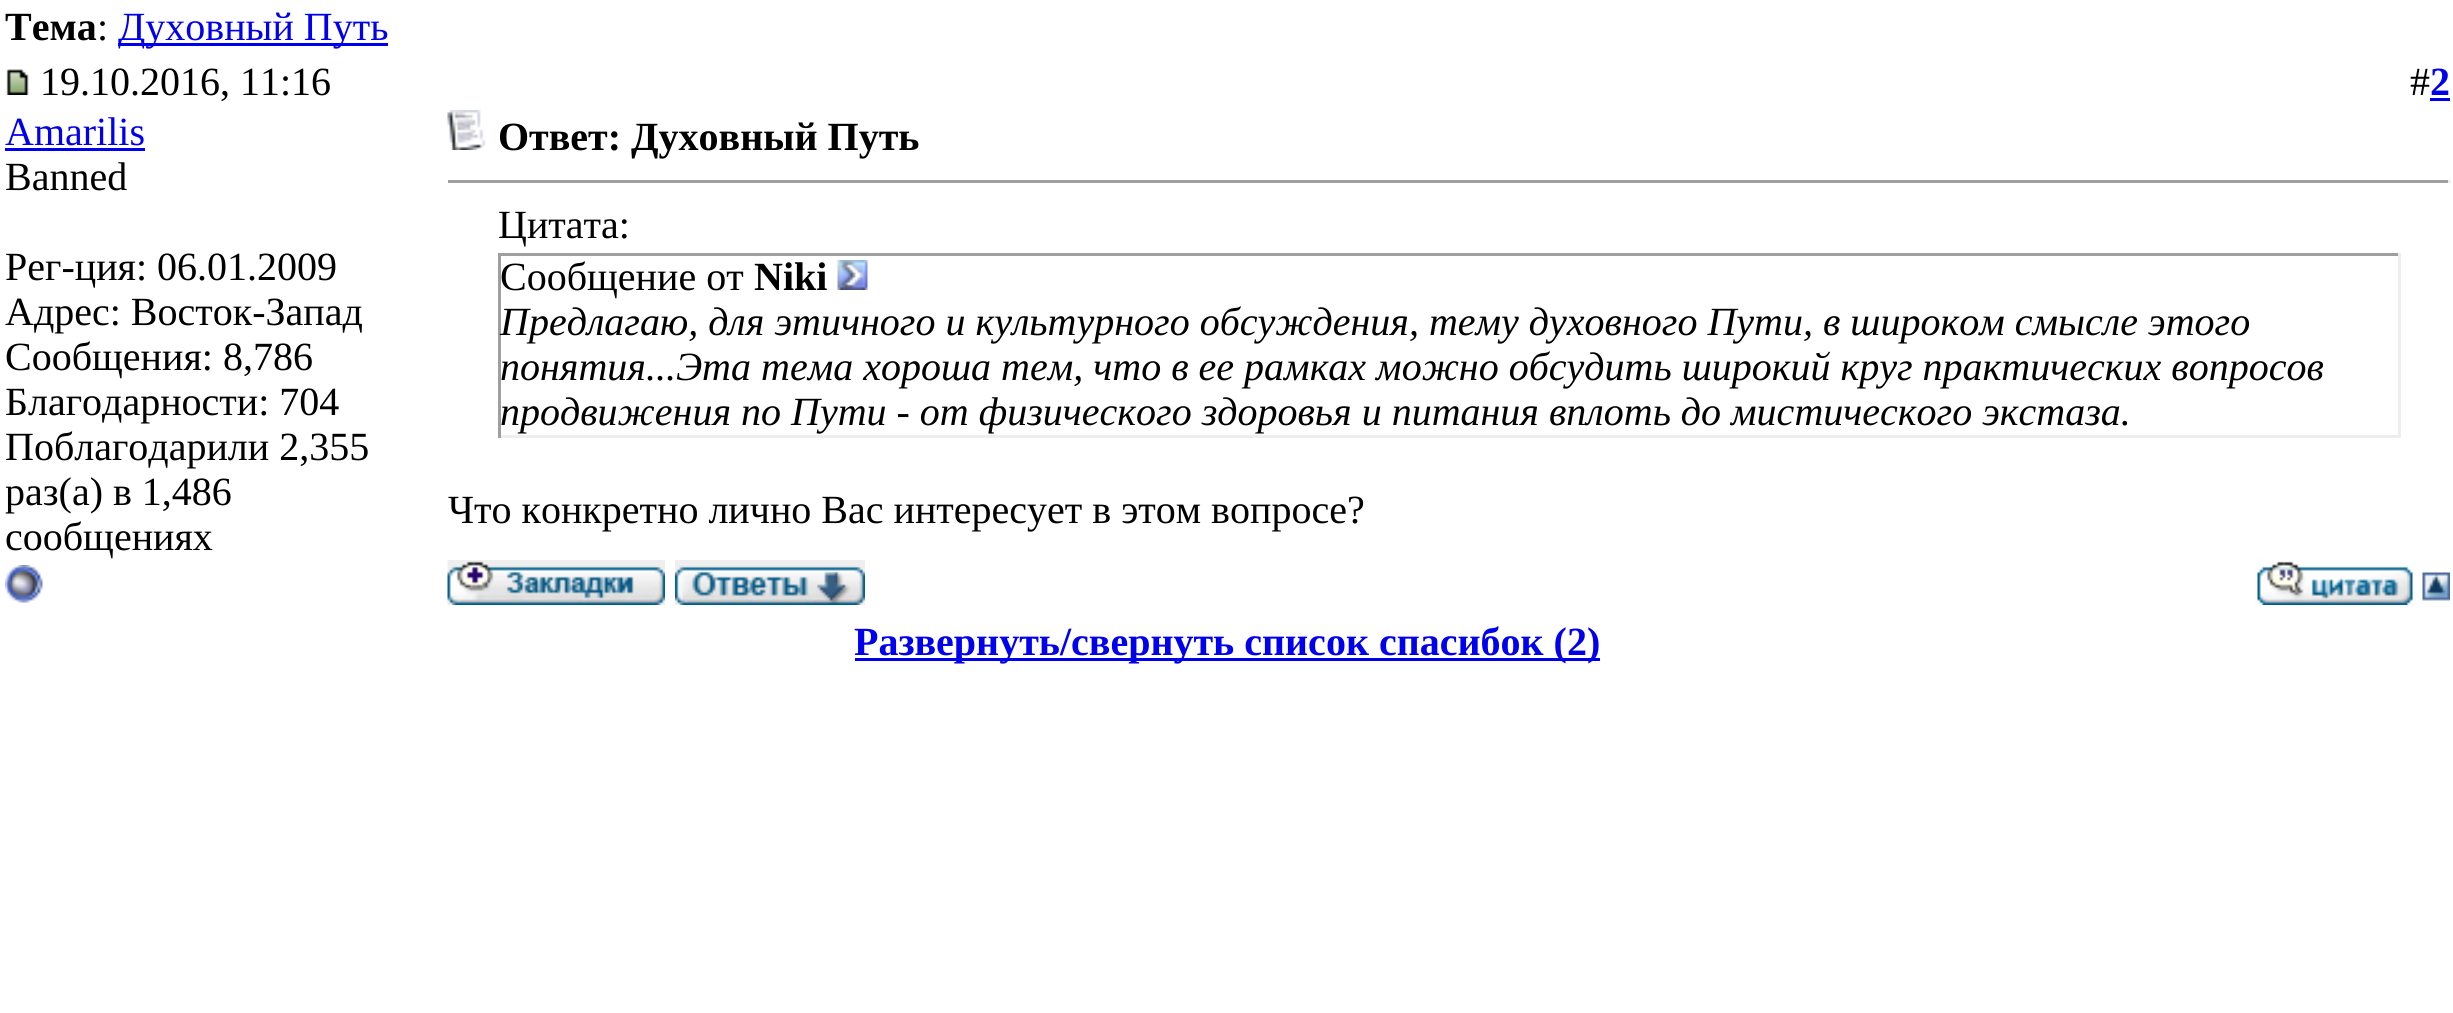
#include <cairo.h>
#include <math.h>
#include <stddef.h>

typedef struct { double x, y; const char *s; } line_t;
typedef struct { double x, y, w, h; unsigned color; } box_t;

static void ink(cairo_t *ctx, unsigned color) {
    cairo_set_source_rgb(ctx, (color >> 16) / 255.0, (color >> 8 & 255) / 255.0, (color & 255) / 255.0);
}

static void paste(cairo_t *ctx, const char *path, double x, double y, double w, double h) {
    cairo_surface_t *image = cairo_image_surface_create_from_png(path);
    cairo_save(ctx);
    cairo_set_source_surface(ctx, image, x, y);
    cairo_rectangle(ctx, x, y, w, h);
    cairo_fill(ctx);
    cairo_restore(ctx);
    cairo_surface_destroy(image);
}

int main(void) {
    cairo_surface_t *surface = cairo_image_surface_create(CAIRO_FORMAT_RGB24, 2453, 1013);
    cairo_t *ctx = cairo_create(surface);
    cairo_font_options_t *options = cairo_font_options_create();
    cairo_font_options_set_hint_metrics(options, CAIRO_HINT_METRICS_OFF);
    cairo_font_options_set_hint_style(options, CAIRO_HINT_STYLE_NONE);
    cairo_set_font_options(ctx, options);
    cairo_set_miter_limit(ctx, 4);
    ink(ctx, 0xFFFFFF);
    cairo_paint(ctx);
    cairo_select_font_face(ctx, "Liberation Serif", CAIRO_FONT_SLANT_NORMAL, CAIRO_FONT_WEIGHT_BOLD);
    cairo_set_font_size(ctx, 40);
    ink(ctx, 0x000000);
    cairo_move_to(ctx, 5, 40);
    cairo_show_text(ctx, "Тема");
    cairo_select_font_face(ctx, "Liberation Serif", CAIRO_FONT_SLANT_NORMAL, CAIRO_FONT_WEIGHT_NORMAL);
    cairo_move_to(ctx, 97, 40);
    cairo_show_text(ctx, ":");
    ink(ctx, 0x0000EE);
    cairo_rectangle(ctx, 118, 43, 270, 3);
    cairo_fill(ctx);
    cairo_move_to(ctx, 118, 40);
    cairo_show_text(ctx, "Духовный Путь");
    paste(ctx, "media/1.png", 6, 69, 23, 26);
    ink(ctx, 0x000000);
    cairo_move_to(ctx, 40, 95);
    cairo_show_text(ctx, "19.10.2016, 11:16");
    cairo_move_to(ctx, 2410, 95);
    cairo_show_text(ctx, "#");
    cairo_select_font_face(ctx, "Liberation Serif", CAIRO_FONT_SLANT_NORMAL, CAIRO_FONT_WEIGHT_BOLD);
    ink(ctx, 0x0000EE);
    cairo_move_to(ctx, 2430, 95);
    cairo_show_text(ctx, "2");
    cairo_rectangle(ctx, 2430, 98, 20, 3);
    cairo_fill(ctx);
    cairo_select_font_face(ctx, "Liberation Serif", CAIRO_FONT_SLANT_NORMAL, CAIRO_FONT_WEIGHT_NORMAL);
    cairo_move_to(ctx, 5, 145);
    cairo_show_text(ctx, "Amarilis");
    cairo_rectangle(ctx, 5, 148, 140, 3);
    cairo_fill(ctx);
    ink(ctx, 0x000000);
    {
        static const line_t items[] = {
            {5, 190, "Banned"},
            {5, 280, "Рег-ция: 06.01.2009"},
            {5, 325, "Адрес: Восток-Запад"},
            {5, 370, "Сообщения: 8,786"},
            {5, 415, "Благодарности: 704"},
            {5, 460, "Поблагодарили 2,355"},
            {5, 505, "раз(а) в 1,486"},
            {5, 550, "сообщениях"},
        };
        for (size_t i = 0; i < sizeof items / sizeof *items; i++) {
            cairo_move_to(ctx, items[i].x, items[i].y);
            cairo_show_text(ctx, items[i].s);
        }
    }
    paste(ctx, "media/2.png", 447, 110, 39, 40);
    cairo_select_font_face(ctx, "Liberation Serif", CAIRO_FONT_SLANT_NORMAL, CAIRO_FONT_WEIGHT_BOLD);
    cairo_move_to(ctx, 498, 150);
    cairo_show_text(ctx, "Ответ: Духовный Путь");
    ink(ctx, 0x9F9F9F);
    cairo_rectangle(ctx, 448, 180, 2002, 3);
    cairo_fill(ctx);
    ink(ctx, 0xEEEEEE);
    cairo_rectangle(ctx, 2448, 180, 3, 3);
    cairo_fill(ctx);
    cairo_select_font_face(ctx, "Liberation Serif", CAIRO_FONT_SLANT_NORMAL, CAIRO_FONT_WEIGHT_NORMAL);
    ink(ctx, 0x000000);
    cairo_move_to(ctx, 498, 238);
    cairo_show_text(ctx, "Цитата:");
    {
        static const box_t items[] = {
            {498, 253, 1902, 3, 0x9F9F9F},
            {2398, 253, 3, 185, 0xEEEEEE},
            {498, 435, 1902, 3, 0xEEEEEE},
            {498, 253, 3, 185, 0x9F9F9F},
        };
        for (size_t i = 0; i < sizeof items / sizeof *items; i++) {
            ink(ctx, items[i].color);
            cairo_rectangle(ctx, items[i].x, items[i].y, items[i].w, items[i].h);
            cairo_fill(ctx);
        }
    }
    ink(ctx, 0x000000);
    cairo_move_to(ctx, 500, 290);
    cairo_show_text(ctx, "Сообщение от");
    cairo_select_font_face(ctx, "Liberation Serif", CAIRO_FONT_SLANT_NORMAL, CAIRO_FONT_WEIGHT_BOLD);
    cairo_move_to(ctx, 754, 290);
    cairo_show_text(ctx, "Niki");
    paste(ctx, "media/3.png", 837, 260, 31, 30);
    cairo_select_font_face(ctx, "Liberation Serif", CAIRO_FONT_SLANT_ITALIC, CAIRO_FONT_WEIGHT_NORMAL);
    {
        static const line_t items[] = {
            {500, 335, "Предлагаю, для этичного и культурного обсуждения, тему духовного Пути, в широком смысле этого"},
            {500, 380, "понятия...Эта тема хороша тем, что в ее рамках можно обсудить широкий круг практических вопросов"},
            {500, 425, "продвижения по Пути - от физического здоровья и питания вплоть до мистического экстаза."},
        };
        for (size_t i = 0; i < sizeof items / sizeof *items; i++) {
            cairo_move_to(ctx, items[i].x, items[i].y);
            cairo_show_text(ctx, items[i].s);
        }
    }
    cairo_select_font_face(ctx, "Liberation Serif", CAIRO_FONT_SLANT_NORMAL, CAIRO_FONT_WEIGHT_NORMAL);
    cairo_move_to(ctx, 448, 523);
    cairo_show_text(ctx, "Что конкретно лично Вас интересует в этом вопросе?");
    paste(ctx, "media/4.png", 5, 565, 38, 38);
    paste(ctx, "media/5.png", 447, 560, 218, 45);
    paste(ctx, "media/6.png", 675, 560, 190, 45);
    paste(ctx, "media/7.png", 2257, 561, 156, 44);
    paste(ctx, "media/8.png", 2422, 572, 28, 29);
    ink(ctx, 0x0000EE);
    cairo_rectangle(ctx, 855, 658, 745, 3);
    cairo_fill(ctx);
    cairo_select_font_face(ctx, "Liberation Serif", CAIRO_FONT_SLANT_NORMAL, CAIRO_FONT_WEIGHT_BOLD);
    cairo_move_to(ctx, 854, 655);
    cairo_show_text(ctx, "Развернуть/свернуть список спасибок (2)");
    cairo_surface_write_to_png(surface, "image.png");
    cairo_font_options_destroy(options);
    cairo_destroy(ctx);
    cairo_surface_destroy(surface);
    return 0;
}
